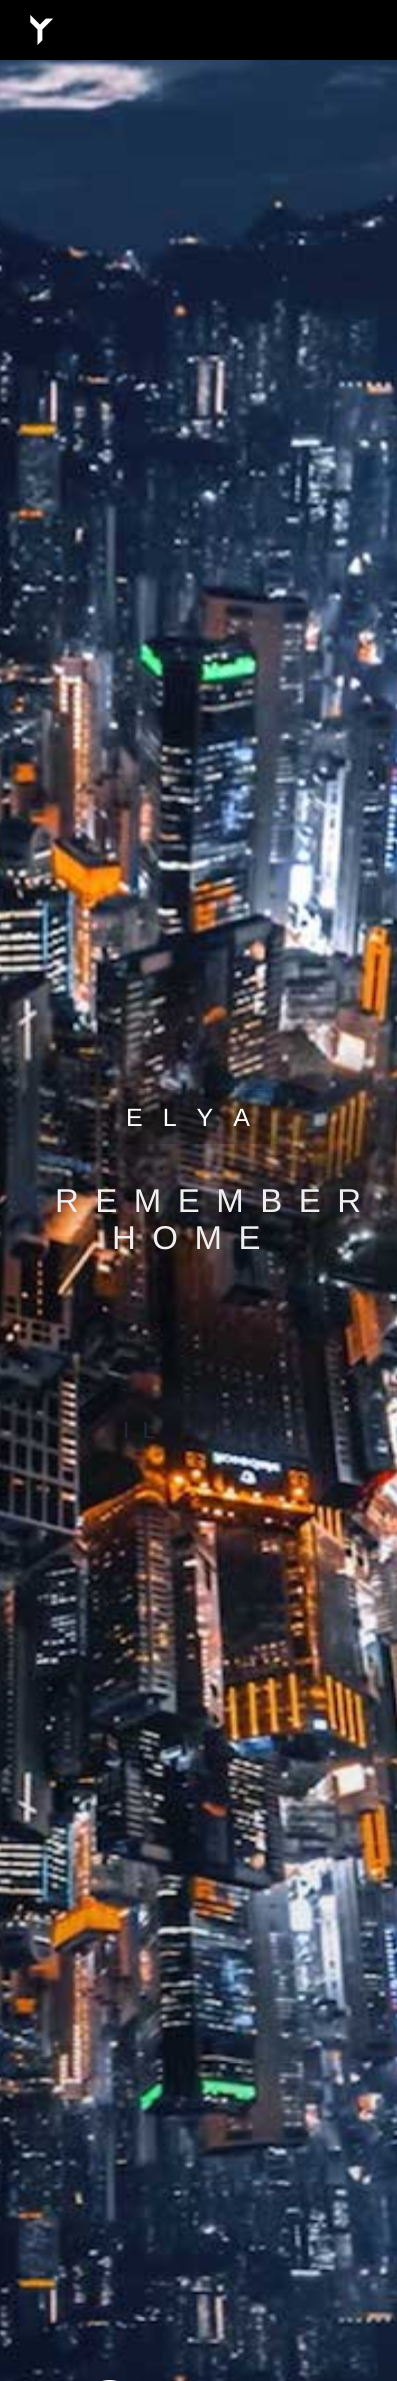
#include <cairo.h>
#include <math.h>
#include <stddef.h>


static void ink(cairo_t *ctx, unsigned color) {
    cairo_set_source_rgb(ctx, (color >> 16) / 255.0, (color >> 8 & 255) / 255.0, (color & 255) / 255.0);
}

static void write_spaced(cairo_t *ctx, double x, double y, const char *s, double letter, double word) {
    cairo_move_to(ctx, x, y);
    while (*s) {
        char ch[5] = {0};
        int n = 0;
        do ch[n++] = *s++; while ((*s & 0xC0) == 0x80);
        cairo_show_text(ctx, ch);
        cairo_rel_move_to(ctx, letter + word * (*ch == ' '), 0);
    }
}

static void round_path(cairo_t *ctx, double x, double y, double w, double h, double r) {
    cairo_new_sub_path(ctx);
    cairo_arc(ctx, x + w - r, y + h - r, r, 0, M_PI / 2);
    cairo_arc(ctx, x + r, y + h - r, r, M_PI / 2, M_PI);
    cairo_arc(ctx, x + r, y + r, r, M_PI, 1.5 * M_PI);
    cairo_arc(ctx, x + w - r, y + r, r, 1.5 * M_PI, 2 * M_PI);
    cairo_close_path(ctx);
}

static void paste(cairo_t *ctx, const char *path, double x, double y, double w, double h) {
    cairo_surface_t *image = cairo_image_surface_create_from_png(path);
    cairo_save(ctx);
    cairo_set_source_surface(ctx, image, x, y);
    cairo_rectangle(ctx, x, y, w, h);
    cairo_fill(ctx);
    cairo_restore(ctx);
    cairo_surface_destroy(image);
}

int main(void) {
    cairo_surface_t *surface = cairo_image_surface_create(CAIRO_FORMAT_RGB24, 397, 2381);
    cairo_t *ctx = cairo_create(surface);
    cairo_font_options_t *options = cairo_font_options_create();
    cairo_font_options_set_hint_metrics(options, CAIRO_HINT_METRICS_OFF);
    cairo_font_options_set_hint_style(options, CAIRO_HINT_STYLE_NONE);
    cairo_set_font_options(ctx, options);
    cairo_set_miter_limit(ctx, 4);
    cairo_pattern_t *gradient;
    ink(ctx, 0xFFFFFF);
    cairo_paint(ctx);
    ink(ctx, 0x000000);
    cairo_rectangle(ctx, 0, 0, 397, 60);
    cairo_fill(ctx);
    paste(ctx, "media/1.png", 30, 15, 24, 30);
    paste(ctx, "media/2.png", 0, 60, 397, 2321);
    cairo_set_source_rgba(ctx, 0, 0, 0, 0.2);
    cairo_rectangle(ctx, 126, 1090, 145, 54);
    cairo_fill(ctx);
    cairo_select_font_face(ctx, "Liberation Sans", CAIRO_FONT_SLANT_NORMAL, CAIRO_FONT_WEIGHT_NORMAL);
    cairo_set_font_size(ctx, 25);
    ink(ctx, 0xFFFFFF);
    write_spaced(ctx, 126, 1126, "ELYA", 20, 0);
    cairo_set_font_size(ctx, 33);
    ink(ctx, 0xEFEFEF);
    write_spaced(ctx, 55, 1212, "REMEMBER", 16.5, 0);
    write_spaced(ctx, 112, 1249, "HOME", 16.5, 0);
    cairo_set_font_size(ctx, 23);
    ink(ctx, 0x252730);
    write_spaced(ctx, 123, 1438, "IL", 13, 0);
    gradient = cairo_pattern_create_linear(110, 2380, 110, 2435);
    cairo_pattern_add_color_stop_rgba(gradient, 0, 1, 1, 1, 1);
    cairo_pattern_add_color_stop_rgba(gradient, 1, 0.529, 0.529, 0.529, 1);
    cairo_set_source(ctx, gradient);
    cairo_pattern_destroy(gradient);
    round_path(ctx, 82, 2380, 55, 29, 27.5);
    cairo_fill(ctx);
    cairo_set_source_rgba(ctx, 0, 0, 0, 0.25);
    round_path(ctx, 142, 2380, 55, 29, 27.5);
    cairo_fill(ctx);
    round_path(ctx, 202, 2380, 55, 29, 27.5);
    cairo_fill(ctx);
    round_path(ctx, 262, 2380, 55, 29, 27.5);
    cairo_fill(ctx);
    cairo_surface_write_to_png(surface, "image.png");
    cairo_font_options_destroy(options);
    cairo_destroy(ctx);
    cairo_surface_destroy(surface);
    return 0;
}
